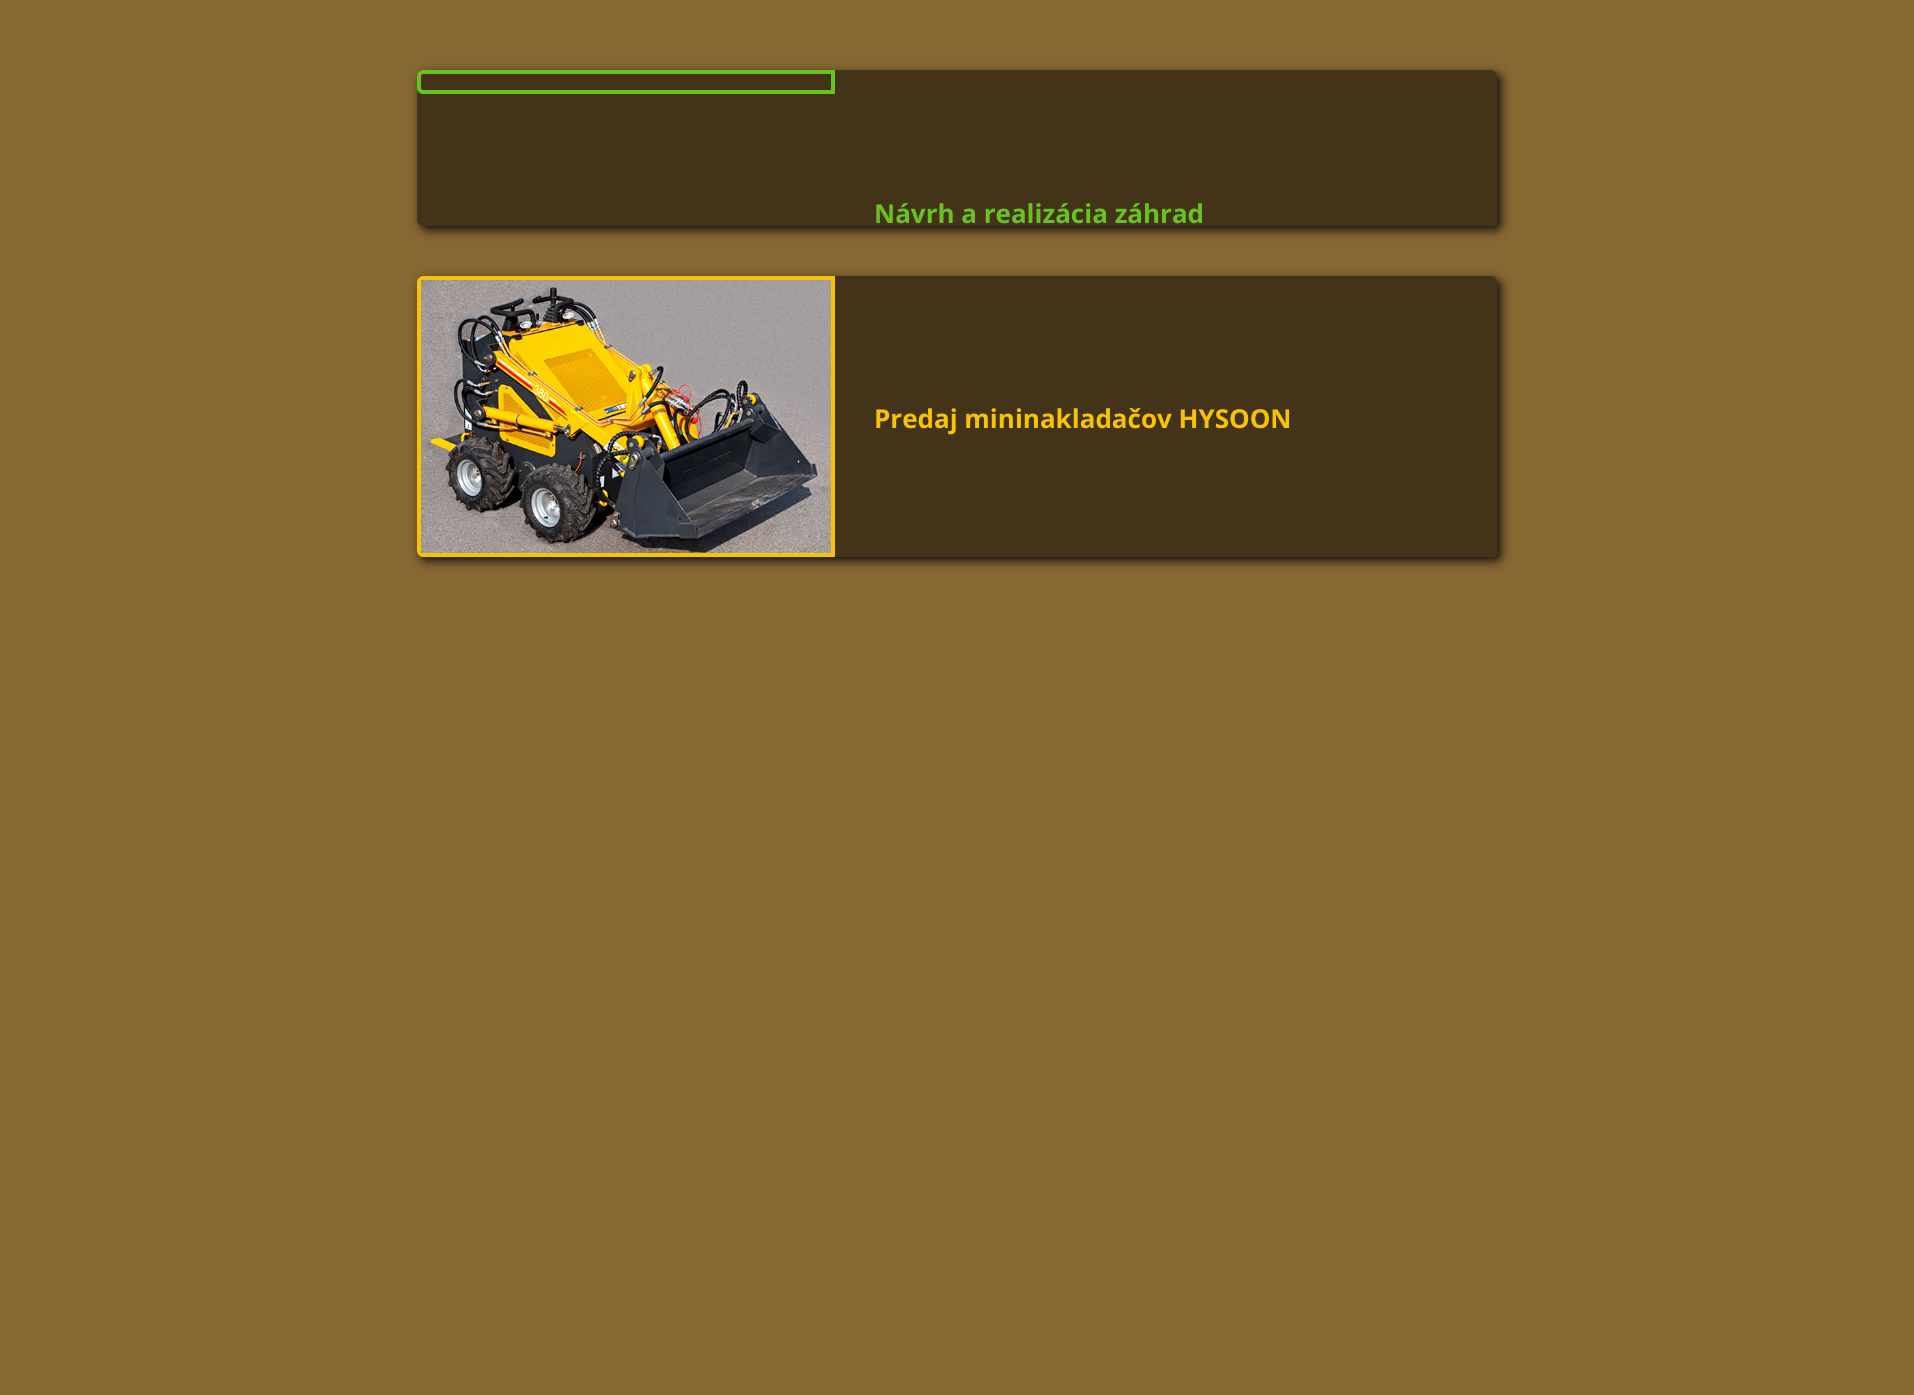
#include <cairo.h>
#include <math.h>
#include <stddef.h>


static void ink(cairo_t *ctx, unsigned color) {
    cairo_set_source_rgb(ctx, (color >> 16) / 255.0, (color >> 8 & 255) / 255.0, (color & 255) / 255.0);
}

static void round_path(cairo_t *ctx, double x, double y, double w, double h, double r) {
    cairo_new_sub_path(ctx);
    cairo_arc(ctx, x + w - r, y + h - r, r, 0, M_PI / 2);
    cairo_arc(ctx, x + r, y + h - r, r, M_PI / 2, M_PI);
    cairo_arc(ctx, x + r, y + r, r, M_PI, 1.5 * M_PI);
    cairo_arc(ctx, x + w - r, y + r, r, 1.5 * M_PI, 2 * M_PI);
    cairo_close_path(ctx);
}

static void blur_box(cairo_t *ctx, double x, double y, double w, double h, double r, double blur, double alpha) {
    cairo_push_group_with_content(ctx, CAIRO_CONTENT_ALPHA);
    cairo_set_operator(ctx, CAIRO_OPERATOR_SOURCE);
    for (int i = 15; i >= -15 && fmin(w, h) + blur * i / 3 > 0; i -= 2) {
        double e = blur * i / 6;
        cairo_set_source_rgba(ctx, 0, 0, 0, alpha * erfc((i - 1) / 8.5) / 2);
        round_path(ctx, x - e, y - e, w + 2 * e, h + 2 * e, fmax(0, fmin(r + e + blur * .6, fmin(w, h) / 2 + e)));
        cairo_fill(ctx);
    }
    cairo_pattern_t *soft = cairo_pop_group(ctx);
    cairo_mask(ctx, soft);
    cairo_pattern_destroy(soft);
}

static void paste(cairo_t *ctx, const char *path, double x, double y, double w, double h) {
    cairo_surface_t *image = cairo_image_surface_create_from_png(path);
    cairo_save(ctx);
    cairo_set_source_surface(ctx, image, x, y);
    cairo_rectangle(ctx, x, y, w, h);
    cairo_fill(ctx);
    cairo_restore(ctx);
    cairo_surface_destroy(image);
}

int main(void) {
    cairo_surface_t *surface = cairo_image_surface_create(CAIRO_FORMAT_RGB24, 1914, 1395);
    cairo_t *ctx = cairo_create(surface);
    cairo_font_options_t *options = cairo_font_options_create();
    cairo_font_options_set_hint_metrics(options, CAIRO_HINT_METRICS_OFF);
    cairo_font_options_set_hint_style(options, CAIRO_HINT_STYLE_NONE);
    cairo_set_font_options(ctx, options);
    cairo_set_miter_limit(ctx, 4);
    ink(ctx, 0x876732);
    cairo_paint(ctx);
    cairo_save(ctx);
    cairo_set_fill_rule(ctx, CAIRO_FILL_RULE_EVEN_ODD);
    cairo_new_path(ctx);
    cairo_move_to(ctx, 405, 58);
    cairo_line_to(ctx, 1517, 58);
    cairo_line_to(ctx, 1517, 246);
    cairo_line_to(ctx, 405, 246);
    cairo_close_path(ctx);
    cairo_move_to(ctx, 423, 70);
    cairo_line_to(ctx, 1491, 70);
    cairo_curve_to(ctx, 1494.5, 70, 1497, 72.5, 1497, 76);
    cairo_line_to(ctx, 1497, 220);
    cairo_curve_to(ctx, 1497, 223.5, 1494.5, 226, 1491, 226);
    cairo_line_to(ctx, 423, 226);
    cairo_curve_to(ctx, 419.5, 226, 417, 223.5, 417, 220);
    cairo_line_to(ctx, 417, 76);
    cairo_curve_to(ctx, 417, 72.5, 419.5, 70, 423, 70);
    cairo_close_path(ctx);
    cairo_clip(ctx);
    ink(ctx, 0x111111);
    blur_box(ctx, 421, 74, 1080, 156, 6, 5, 1);
    cairo_restore(ctx);
    cairo_set_source_rgba(ctx, 0, 0, 0, 0.5);
    round_path(ctx, 417, 70, 1080, 156, 6);
    cairo_fill(ctx);
    cairo_new_path(ctx);
    cairo_move_to(ctx, 423, 72);
    cairo_line_to(ctx, 833, 72);
    cairo_line_to(ctx, 833, 92);
    cairo_line_to(ctx, 423, 92);
    cairo_curve_to(ctx, 421, 92, 419, 90, 419, 88);
    cairo_line_to(ctx, 419, 76);
    cairo_curve_to(ctx, 419, 74, 421, 72, 423, 72);
    cairo_close_path(ctx);
    ink(ctx, 0x68C31E);
    cairo_set_line_width(ctx, 4);
    cairo_stroke(ctx);
    cairo_select_font_face(ctx, "Open Sans", CAIRO_FONT_SLANT_NORMAL, CAIRO_FONT_WEIGHT_BOLD);
    cairo_set_font_size(ctx, 26);
    cairo_move_to(ctx, 874, 223);
    cairo_show_text(ctx, "Návrh a realizácia záhrad");
    cairo_save(ctx);
    cairo_set_fill_rule(ctx, CAIRO_FILL_RULE_EVEN_ODD);
    cairo_new_path(ctx);
    cairo_move_to(ctx, 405, 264);
    cairo_line_to(ctx, 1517, 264);
    cairo_line_to(ctx, 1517, 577);
    cairo_line_to(ctx, 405, 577);
    cairo_close_path(ctx);
    cairo_move_to(ctx, 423, 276);
    cairo_line_to(ctx, 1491, 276);
    cairo_curve_to(ctx, 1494.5, 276, 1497, 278.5, 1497, 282);
    cairo_line_to(ctx, 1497, 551);
    cairo_curve_to(ctx, 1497, 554.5, 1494.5, 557, 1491, 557);
    cairo_line_to(ctx, 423, 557);
    cairo_curve_to(ctx, 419.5, 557, 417, 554.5, 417, 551);
    cairo_line_to(ctx, 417, 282);
    cairo_curve_to(ctx, 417, 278.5, 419.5, 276, 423, 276);
    cairo_close_path(ctx);
    cairo_clip(ctx);
    ink(ctx, 0x111111);
    blur_box(ctx, 421, 280, 1080, 281, 6, 5, 1);
    cairo_restore(ctx);
    cairo_set_source_rgba(ctx, 0, 0, 0, 0.5);
    round_path(ctx, 417, 276, 1080, 281, 6);
    cairo_fill(ctx);
    cairo_new_path(ctx);
    cairo_move_to(ctx, 423, 278);
    cairo_line_to(ctx, 833, 278);
    cairo_line_to(ctx, 833, 555);
    cairo_line_to(ctx, 423, 555);
    cairo_curve_to(ctx, 421, 555, 419, 553, 419, 551);
    cairo_line_to(ctx, 419, 282);
    cairo_curve_to(ctx, 419, 280, 421, 278, 423, 278);
    cairo_close_path(ctx);
    ink(ctx, 0xF8C300);
    cairo_stroke(ctx);
    paste(ctx, "media/1.png", 421, 280, 410, 273);
    cairo_move_to(ctx, 874, 428);
    cairo_show_text(ctx, "Predaj mininakladačov HYSOON");
    cairo_surface_write_to_png(surface, "image.png");
    cairo_font_options_destroy(options);
    cairo_destroy(ctx);
    cairo_surface_destroy(surface);
    return 0;
}
